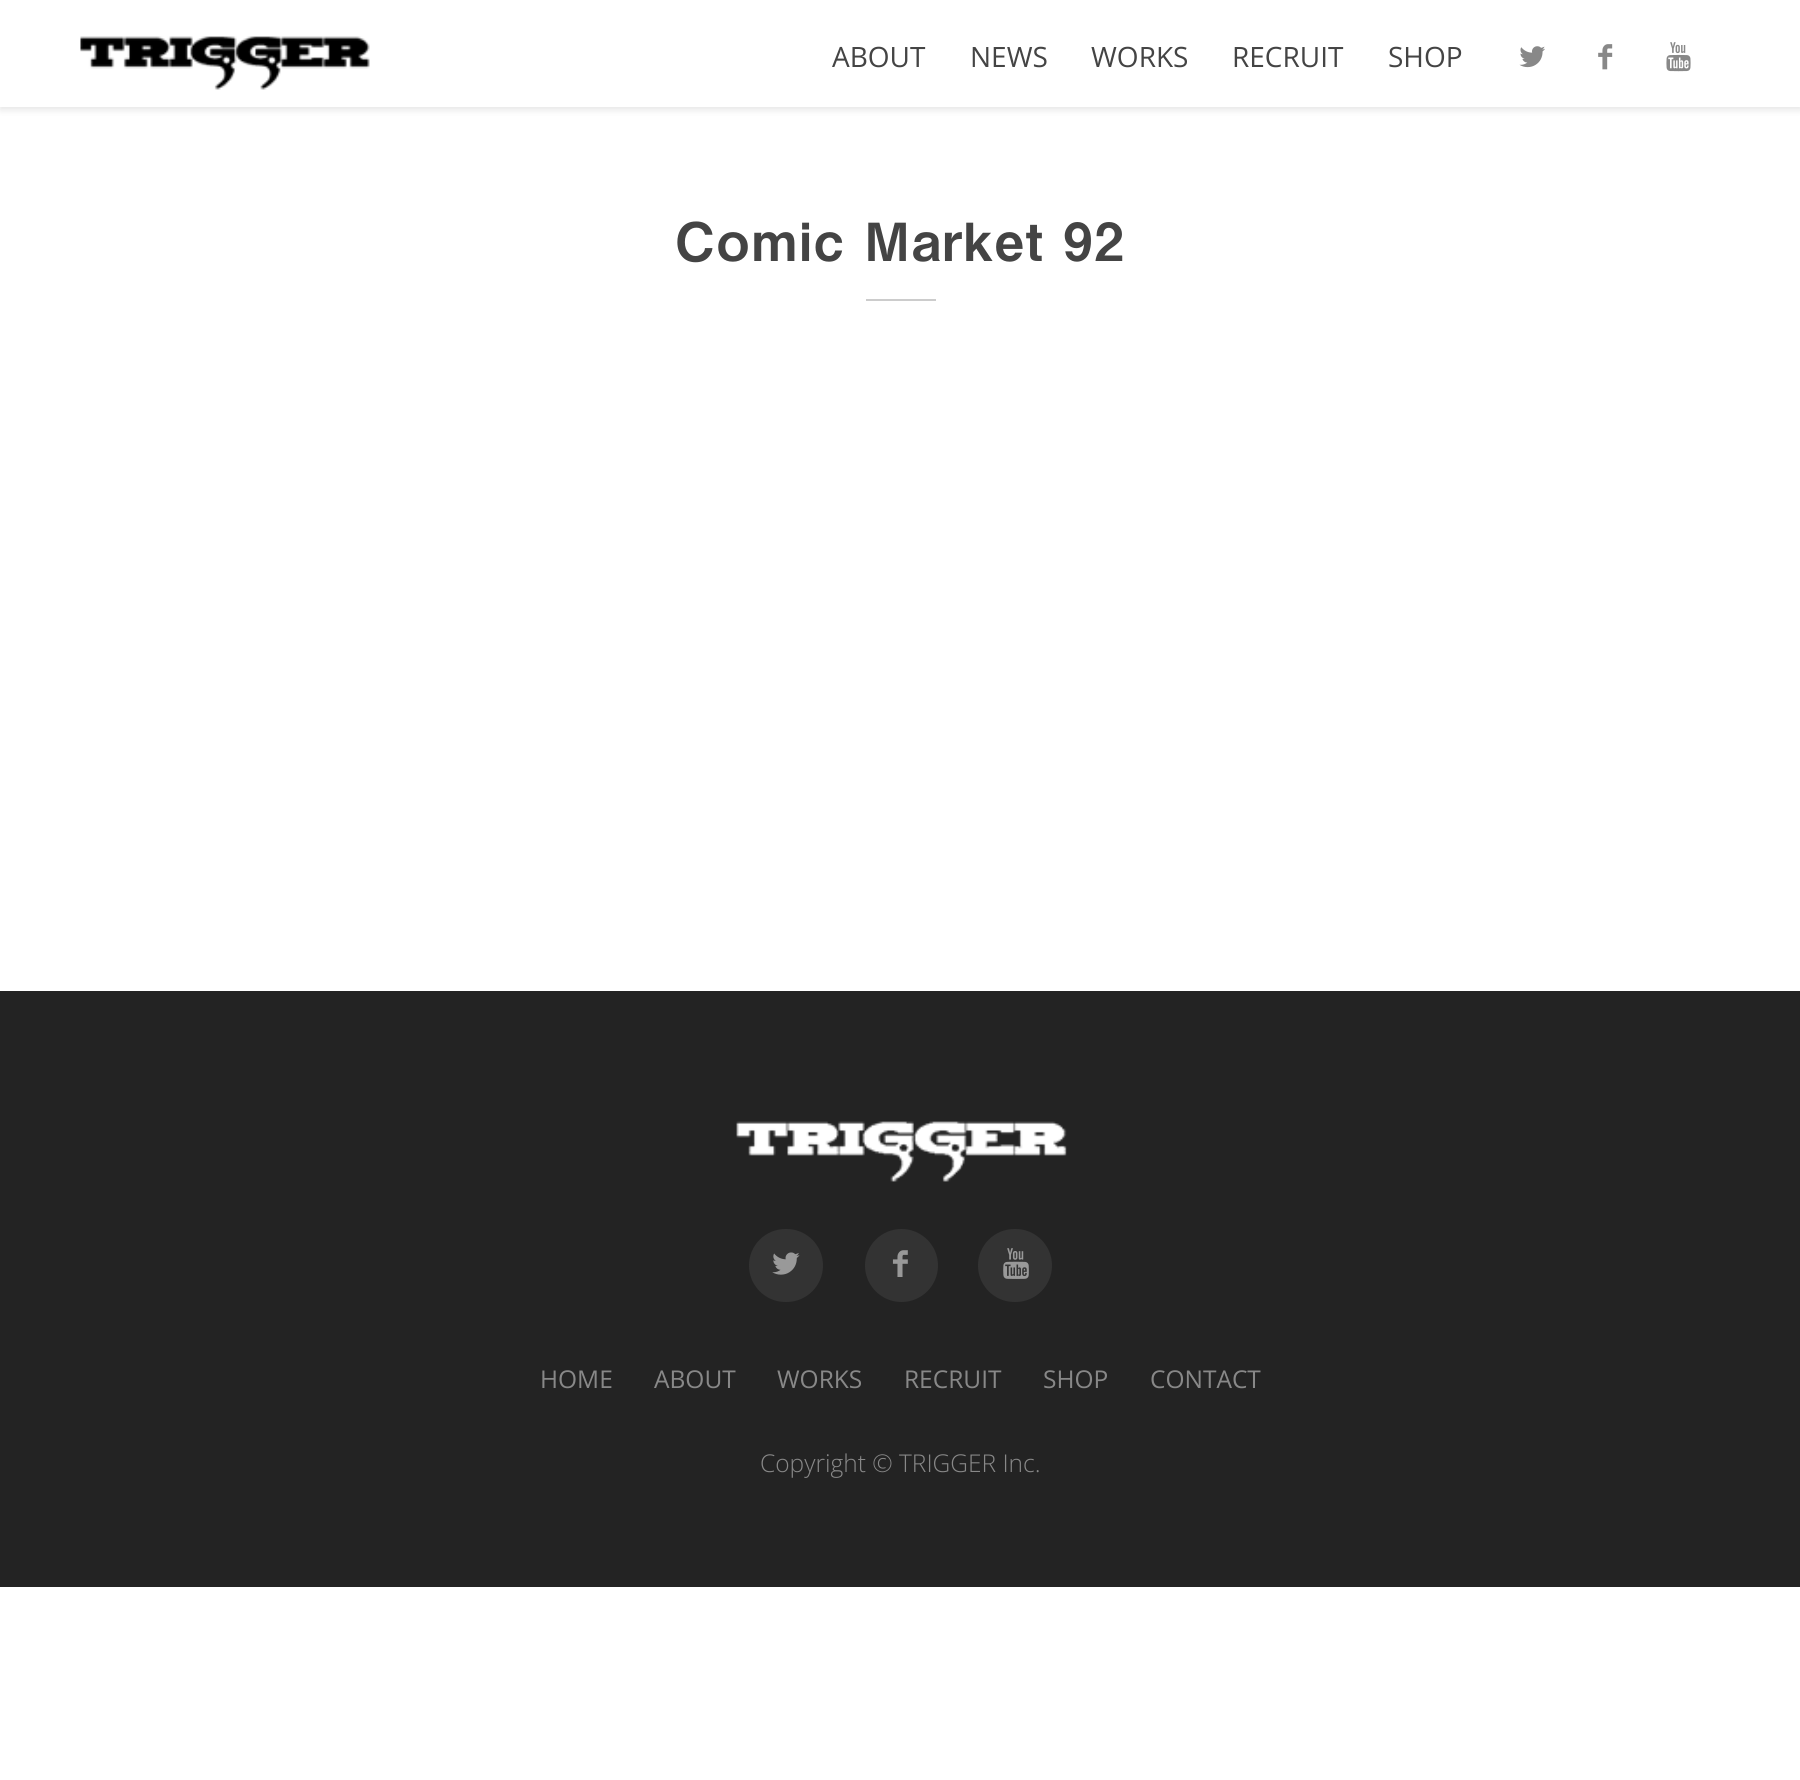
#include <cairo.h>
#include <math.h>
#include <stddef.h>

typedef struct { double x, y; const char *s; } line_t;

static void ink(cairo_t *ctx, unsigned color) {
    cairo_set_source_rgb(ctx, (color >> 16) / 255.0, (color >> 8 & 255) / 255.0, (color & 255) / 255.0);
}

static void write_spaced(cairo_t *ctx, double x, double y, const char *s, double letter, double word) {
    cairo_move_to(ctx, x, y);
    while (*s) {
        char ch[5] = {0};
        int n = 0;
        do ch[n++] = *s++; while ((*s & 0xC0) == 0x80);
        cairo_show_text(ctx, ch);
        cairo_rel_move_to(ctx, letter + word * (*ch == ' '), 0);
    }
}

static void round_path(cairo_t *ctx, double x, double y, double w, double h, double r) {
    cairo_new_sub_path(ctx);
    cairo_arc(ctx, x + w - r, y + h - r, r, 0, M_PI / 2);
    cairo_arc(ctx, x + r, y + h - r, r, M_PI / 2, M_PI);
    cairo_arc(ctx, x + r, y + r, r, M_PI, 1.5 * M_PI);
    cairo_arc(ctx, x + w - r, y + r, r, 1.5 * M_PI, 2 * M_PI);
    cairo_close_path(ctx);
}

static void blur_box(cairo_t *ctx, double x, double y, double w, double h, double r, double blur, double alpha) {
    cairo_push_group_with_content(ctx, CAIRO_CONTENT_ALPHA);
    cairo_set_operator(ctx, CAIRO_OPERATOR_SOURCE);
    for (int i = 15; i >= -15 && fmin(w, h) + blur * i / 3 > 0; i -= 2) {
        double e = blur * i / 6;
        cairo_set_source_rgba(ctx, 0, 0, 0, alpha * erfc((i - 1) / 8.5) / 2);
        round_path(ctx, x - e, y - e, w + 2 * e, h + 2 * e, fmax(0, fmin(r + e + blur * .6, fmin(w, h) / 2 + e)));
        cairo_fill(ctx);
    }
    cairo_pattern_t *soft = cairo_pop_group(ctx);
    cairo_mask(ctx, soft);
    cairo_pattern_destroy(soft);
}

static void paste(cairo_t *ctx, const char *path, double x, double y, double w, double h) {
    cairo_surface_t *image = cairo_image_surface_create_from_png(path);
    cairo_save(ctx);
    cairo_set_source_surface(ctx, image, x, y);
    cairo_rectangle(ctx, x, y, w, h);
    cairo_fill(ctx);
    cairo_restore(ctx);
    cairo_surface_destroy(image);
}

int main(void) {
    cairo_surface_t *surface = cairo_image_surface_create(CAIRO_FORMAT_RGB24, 1800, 1780);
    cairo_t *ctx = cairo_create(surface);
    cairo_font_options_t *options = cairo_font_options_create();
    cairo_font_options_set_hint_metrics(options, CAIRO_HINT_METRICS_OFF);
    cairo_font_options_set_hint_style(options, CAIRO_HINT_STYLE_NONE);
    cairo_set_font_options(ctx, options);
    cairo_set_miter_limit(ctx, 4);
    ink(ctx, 0xFFFFFF);
    cairo_paint(ctx);
    ink(ctx, 0x000000);
    blur_box(ctx, 0, 4, 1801, 106, 0, 3.5, 0.1);
    ink(ctx, 0xFFFFFF);
    cairo_rectangle(ctx, 0, 0, 1800, 107);
    cairo_fill(ctx);
    paste(ctx, "media/1.png", 80, 36, 290, 54);
    cairo_select_font_face(ctx, "Open Sans", CAIRO_FONT_SLANT_NORMAL, CAIRO_FONT_WEIGHT_NORMAL);
    cairo_set_font_size(ctx, 28);
    ink(ctx, 0x444444);
    {
        static const line_t items[] = {
            {832, 67, "ABOUT"},
            {970, 67, "NEWS"},
            {1091, 67, "WORKS"},
            {1232, 67, "RECRUIT"},
            {1388, 67, "SHOP"},
        };
        for (size_t i = 0; i < sizeof items / sizeof *items; i++) {
            cairo_move_to(ctx, items[i].x, items[i].y);
            cairo_show_text(ctx, items[i].s);
        }
    }
    paste(ctx, "media/2.png", 1519, 46, 26, 22);
    paste(ctx, "media/3.png", 1598, 44, 15, 26);
    paste(ctx, "media/4.png", 1666, 42, 25, 30);
    cairo_select_font_face(ctx, "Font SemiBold", CAIRO_FONT_SLANT_NORMAL, CAIRO_FONT_WEIGHT_NORMAL);
    cairo_set_font_size(ctx, 52.5);
    write_spaced(ctx, 675, 261, "Comic Market 92", 1.75, 0);
    ink(ctx, 0xCCCCCC);
    cairo_rectangle(ctx, 866, 299, 70, 2);
    cairo_fill(ctx);
    ink(ctx, 0x232323);
    cairo_rectangle(ctx, 0, 991, 1800, 596);
    cairo_fill(ctx);
    paste(ctx, "media/5.png", 736, 1121, 331, 61);
    ink(ctx, 0x333333);
    round_path(ctx, 750, 1230, 72, 71, 35.5);
    cairo_fill_preserve(ctx);
    cairo_stroke(ctx);
    paste(ctx, "media/6.png", 772, 1252, 28, 23);
    cairo_arc(ctx, 901.5, 1265.5, 35.5, 0, 2 * M_PI);
    cairo_fill_preserve(ctx);
    cairo_stroke(ctx);
    paste(ctx, "media/7.png", 892, 1250, 16, 27);
    round_path(ctx, 979, 1230, 72, 71, 35.5);
    cairo_fill_preserve(ctx);
    cairo_stroke(ctx);
    paste(ctx, "media/8.png", 1003, 1248, 26, 31);
    cairo_select_font_face(ctx, "Open Sans", CAIRO_FONT_SLANT_NORMAL, CAIRO_FONT_WEIGHT_NORMAL);
    cairo_set_font_size(ctx, 24.5);
    ink(ctx, 0x888888);
    {
        static const line_t items[] = {
            {540, 1388, "HOME"},
            {654, 1388, "ABOUT"},
            {777, 1388, "WORKS"},
            {904, 1388, "RECRUIT"},
            {1043, 1388, "SHOP"},
            {1150, 1388, "CONTACT"},
        };
        for (size_t i = 0; i < sizeof items / sizeof *items; i++) {
            cairo_move_to(ctx, items[i].x, items[i].y);
            cairo_show_text(ctx, items[i].s);
        }
    }
    cairo_select_font_face(ctx, "Open Sans Light", CAIRO_FONT_SLANT_NORMAL, CAIRO_FONT_WEIGHT_NORMAL);
    cairo_move_to(ctx, 760, 1472);
    cairo_show_text(ctx, "Copyright © TRIGGER Inc.");
    cairo_surface_write_to_png(surface, "image.png");
    cairo_font_options_destroy(options);
    cairo_destroy(ctx);
    cairo_surface_destroy(surface);
    return 0;
}
